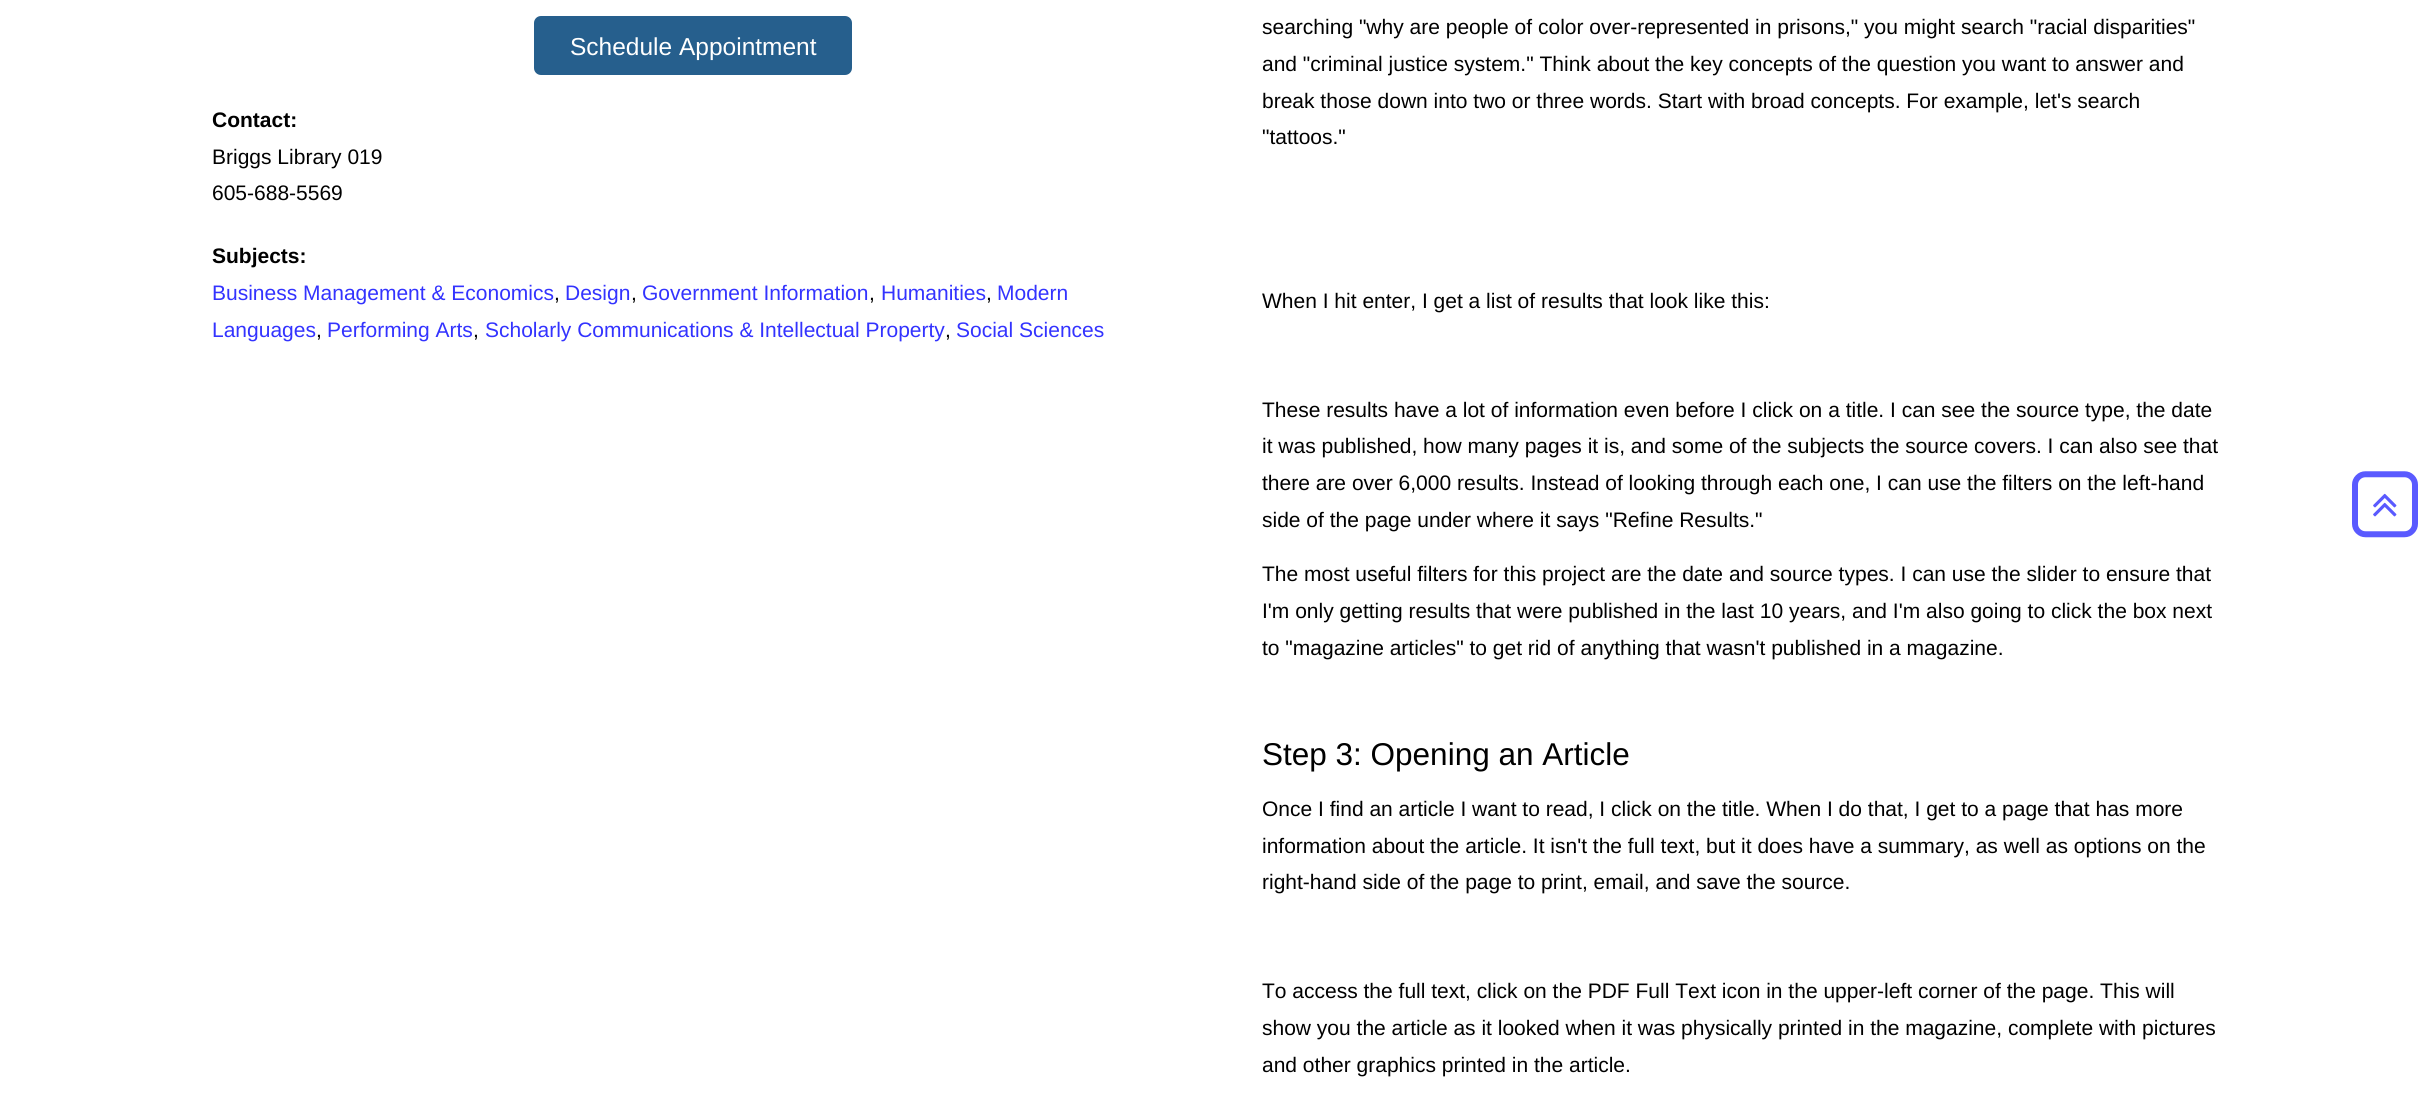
#include <cairo.h>
#include <math.h>
#include <stddef.h>

typedef struct { double x, y; const char *s; } line_t;

static void ink(cairo_t *ctx, unsigned color) {
    cairo_set_source_rgb(ctx, (color >> 16) / 255.0, (color >> 8 & 255) / 255.0, (color & 255) / 255.0);
}

static void round_path(cairo_t *ctx, double x, double y, double w, double h, double r) {
    cairo_new_sub_path(ctx);
    cairo_arc(ctx, x + w - r, y + h - r, r, 0, M_PI / 2);
    cairo_arc(ctx, x + r, y + h - r, r, M_PI / 2, M_PI);
    cairo_arc(ctx, x + r, y + r, r, M_PI, 1.5 * M_PI);
    cairo_arc(ctx, x + w - r, y + r, r, 1.5 * M_PI, 2 * M_PI);
    cairo_close_path(ctx);
}

static void paste(cairo_t *ctx, const char *path, double x, double y, double w, double h) {
    cairo_surface_t *image = cairo_image_surface_create_from_png(path);
    cairo_save(ctx);
    cairo_set_source_surface(ctx, image, x, y);
    cairo_rectangle(ctx, x, y, w, h);
    cairo_fill(ctx);
    cairo_restore(ctx);
    cairo_surface_destroy(image);
}

int main(void) {
    cairo_surface_t *surface = cairo_image_surface_create(CAIRO_FORMAT_RGB24, 2436, 1096);
    cairo_t *ctx = cairo_create(surface);
    cairo_font_options_t *options = cairo_font_options_create();
    cairo_font_options_set_hint_metrics(options, CAIRO_HINT_METRICS_OFF);
    cairo_font_options_set_hint_style(options, CAIRO_HINT_STYLE_NONE);
    cairo_set_font_options(ctx, options);
    cairo_set_miter_limit(ctx, 4);
    ink(ctx, 0xFFFFFF);
    cairo_paint(ctx);
    ink(ctx, 0x265F8D);
    round_path(ctx, 535, 17, 316, 57, 6);
    cairo_fill_preserve(ctx);
    cairo_stroke(ctx);
    cairo_select_font_face(ctx, "Liberation Sans", CAIRO_FONT_SLANT_NORMAL, CAIRO_FONT_WEIGHT_NORMAL);
    cairo_set_font_size(ctx, 24.5);
    ink(ctx, 0xFFFFFF);
    cairo_move_to(ctx, 570, 55);
    cairo_show_text(ctx, "Schedule Appointment");
    cairo_select_font_face(ctx, "Liberation Sans", CAIRO_FONT_SLANT_NORMAL, CAIRO_FONT_WEIGHT_BOLD);
    cairo_set_font_size(ctx, 21);
    ink(ctx, 0x000000);
    cairo_move_to(ctx, 212, 127);
    cairo_show_text(ctx, "Contact:");
    cairo_select_font_face(ctx, "Liberation Sans", CAIRO_FONT_SLANT_NORMAL, CAIRO_FONT_WEIGHT_NORMAL);
    cairo_move_to(ctx, 212, 164);
    cairo_show_text(ctx, "Briggs Library 019");
    cairo_move_to(ctx, 212, 200);
    cairo_show_text(ctx, "605-688-5569");
    cairo_select_font_face(ctx, "Liberation Sans", CAIRO_FONT_SLANT_NORMAL, CAIRO_FONT_WEIGHT_BOLD);
    cairo_move_to(ctx, 212, 263);
    cairo_show_text(ctx, "Subjects:");
    cairo_select_font_face(ctx, "Liberation Sans", CAIRO_FONT_SLANT_NORMAL, CAIRO_FONT_WEIGHT_NORMAL);
    ink(ctx, 0x3333FF);
    cairo_move_to(ctx, 212, 300);
    cairo_show_text(ctx, "Business Management & Economics");
    ink(ctx, 0x000000);
    cairo_move_to(ctx, 554, 300);
    cairo_show_text(ctx, ",");
    ink(ctx, 0x3333FF);
    cairo_move_to(ctx, 565, 300);
    cairo_show_text(ctx, "Design");
    ink(ctx, 0x000000);
    cairo_move_to(ctx, 631, 300);
    cairo_show_text(ctx, ",");
    ink(ctx, 0x3333FF);
    cairo_move_to(ctx, 642, 300);
    cairo_show_text(ctx, "Government Information");
    ink(ctx, 0x000000);
    cairo_move_to(ctx, 869, 300);
    cairo_show_text(ctx, ",");
    ink(ctx, 0x3333FF);
    cairo_move_to(ctx, 881, 300);
    cairo_show_text(ctx, "Humanities");
    ink(ctx, 0x000000);
    cairo_move_to(ctx, 986, 300);
    cairo_show_text(ctx, ",");
    ink(ctx, 0x3333FF);
    cairo_move_to(ctx, 997, 300);
    cairo_show_text(ctx, "Modern");
    cairo_move_to(ctx, 212, 337);
    cairo_show_text(ctx, "Languages");
    ink(ctx, 0x000000);
    cairo_move_to(ctx, 316, 337);
    cairo_show_text(ctx, ",");
    ink(ctx, 0x3333FF);
    cairo_move_to(ctx, 327, 337);
    cairo_show_text(ctx, "Performing Arts");
    ink(ctx, 0x000000);
    cairo_move_to(ctx, 473, 337);
    cairo_show_text(ctx, ",");
    ink(ctx, 0x3333FF);
    cairo_move_to(ctx, 485, 337);
    cairo_show_text(ctx, "Scholarly Communications & Intellectual Property");
    ink(ctx, 0x000000);
    cairo_move_to(ctx, 945, 337);
    cairo_show_text(ctx, ",");
    ink(ctx, 0x3333FF);
    cairo_move_to(ctx, 956, 337);
    cairo_show_text(ctx, "Social Sciences");
    ink(ctx, 0x000000);
    {
        static const line_t items[] = {
            {1262, 34, "searching \"why are people of color over-represented in prisons,\" you might search \"racial disparities\""},
            {1262, 71, "and \"criminal justice system.\" Think about the key concepts of the question you want to answer and"},
            {1262, 108, "break those down into two or three words. Start with broad concepts. For example, let's search"},
            {1262, 144, "\"tattoos.\""},
            {1262, 308, "When I hit enter, I get a list of results that look like this:"},
            {1262, 417, "These results have a lot of information even before I click on a title. I can see the source type, the date"},
            {1262, 453, "it was published, how many pages it is, and some of the subjects the source covers. I can also see that"},
            {1262, 490, "there are over 6,000 results. Instead of looking through each one, I can use the filters on the left-hand"},
            {1262, 527, "side of the page under where it says \"Refine Results.\""},
            {1262, 581, "The most useful filters for this project are the date and source types. I can use the slider to ensure that"},
            {1262, 618, "I'm only getting results that were published in the last 10 years, and I'm also going to click the box next"},
            {1262, 655, "to \"magazine articles\" to get rid of anything that wasn't published in a magazine."},
        };
        for (size_t i = 0; i < sizeof items / sizeof *items; i++) {
            cairo_move_to(ctx, items[i].x, items[i].y);
            cairo_show_text(ctx, items[i].s);
        }
    }
    cairo_set_font_size(ctx, 31.5);
    cairo_move_to(ctx, 1262, 765);
    cairo_show_text(ctx, "Step 3: Opening an Article");
    cairo_set_font_size(ctx, 21);
    {
        static const line_t items[] = {
            {1262, 816, "Once I find an article I want to read, I click on the title. When I do that, I get to a page that has more"},
            {1262, 853, "information about the article. It isn't the full text, but it does have a summary, as well as options on the"},
            {1262, 889, "right-hand side of the page to print, email, and save the source."},
            {1262, 998, "To access the full text, click on the PDF Full Text icon in the upper-left corner of the page. This will"},
            {1262, 1035, "show you the article as it looked when it was physically printed in the magazine, complete with pictures"},
            {1262, 1072, "and other graphics printed in the article."},
        };
        for (size_t i = 0; i < sizeof items / sizeof *items; i++) {
            cairo_move_to(ctx, items[i].x, items[i].y);
            cairo_show_text(ctx, items[i].s);
        }
    }
    paste(ctx, "media/1.png", 2352, 471, 66, 67);
    paste(ctx, "media/2.png", 2373, 493, 24, 24);
    cairo_surface_write_to_png(surface, "image.png");
    cairo_font_options_destroy(options);
    cairo_destroy(ctx);
    cairo_surface_destroy(surface);
    return 0;
}
